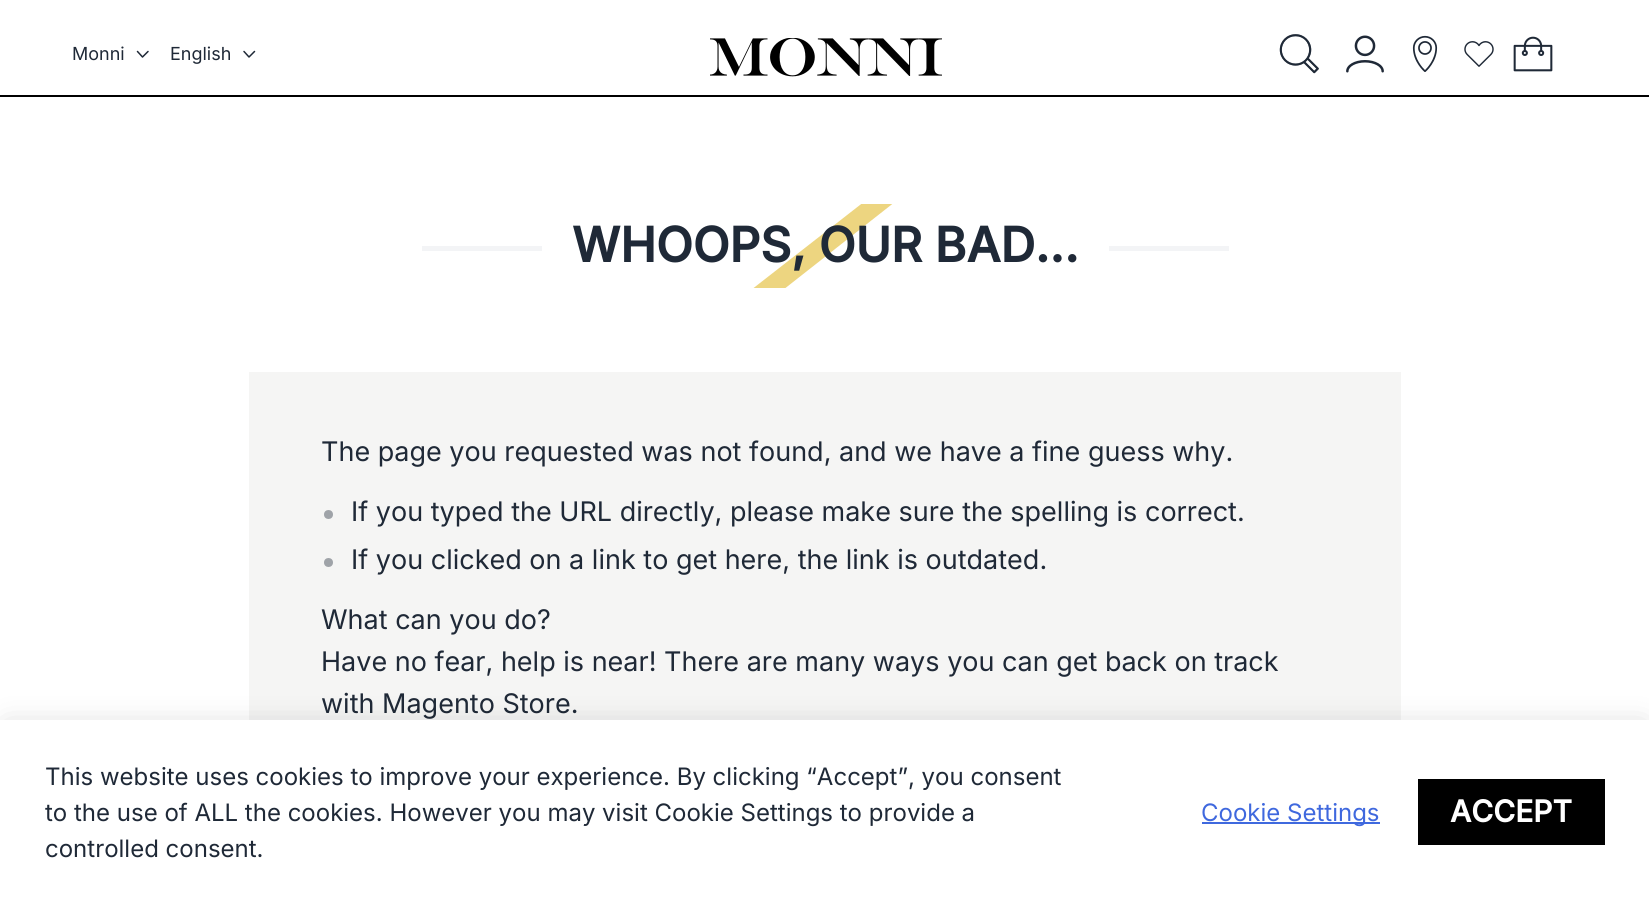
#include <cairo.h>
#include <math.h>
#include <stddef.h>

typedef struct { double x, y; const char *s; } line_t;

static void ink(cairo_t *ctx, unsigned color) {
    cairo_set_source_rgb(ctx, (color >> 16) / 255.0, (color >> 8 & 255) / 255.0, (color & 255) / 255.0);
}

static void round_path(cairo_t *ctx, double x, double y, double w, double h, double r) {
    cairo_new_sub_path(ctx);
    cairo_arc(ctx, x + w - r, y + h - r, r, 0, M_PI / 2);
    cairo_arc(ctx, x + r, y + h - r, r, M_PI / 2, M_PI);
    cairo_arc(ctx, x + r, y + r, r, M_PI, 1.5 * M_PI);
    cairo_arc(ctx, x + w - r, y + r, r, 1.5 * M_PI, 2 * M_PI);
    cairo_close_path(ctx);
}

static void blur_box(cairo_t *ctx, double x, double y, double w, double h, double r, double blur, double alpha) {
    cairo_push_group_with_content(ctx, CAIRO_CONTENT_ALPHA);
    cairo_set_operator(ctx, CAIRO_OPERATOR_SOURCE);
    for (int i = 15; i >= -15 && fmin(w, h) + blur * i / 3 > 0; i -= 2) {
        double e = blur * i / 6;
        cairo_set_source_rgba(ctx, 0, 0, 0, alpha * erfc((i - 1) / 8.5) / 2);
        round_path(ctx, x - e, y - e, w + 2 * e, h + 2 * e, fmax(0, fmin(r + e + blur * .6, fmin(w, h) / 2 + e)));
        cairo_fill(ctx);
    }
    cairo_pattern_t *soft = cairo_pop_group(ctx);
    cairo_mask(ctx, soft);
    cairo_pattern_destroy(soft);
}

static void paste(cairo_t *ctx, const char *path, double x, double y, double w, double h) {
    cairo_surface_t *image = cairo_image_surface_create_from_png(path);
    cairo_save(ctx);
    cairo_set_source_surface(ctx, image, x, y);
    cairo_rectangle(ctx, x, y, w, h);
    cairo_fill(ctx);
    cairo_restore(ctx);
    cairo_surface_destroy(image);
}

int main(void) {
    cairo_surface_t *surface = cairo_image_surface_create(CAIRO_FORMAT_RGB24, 1649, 902);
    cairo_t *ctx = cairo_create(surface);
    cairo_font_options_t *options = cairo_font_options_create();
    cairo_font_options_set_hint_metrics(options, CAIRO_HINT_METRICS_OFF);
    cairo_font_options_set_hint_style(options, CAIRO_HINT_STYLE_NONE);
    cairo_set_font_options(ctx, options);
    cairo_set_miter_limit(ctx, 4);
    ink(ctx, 0xFFFFFF);
    cairo_paint(ctx);
    ink(ctx, 0x000000);
    cairo_rectangle(ctx, 0, 95, 1649, 2);
    cairo_fill(ctx);
    cairo_select_font_face(ctx, "Inter", CAIRO_FONT_SLANT_NORMAL, CAIRO_FONT_WEIGHT_NORMAL);
    cairo_set_font_size(ctx, 18);
    ink(ctx, 0x1F2937);
    cairo_move_to(ctx, 72, 60);
    cairo_show_text(ctx, "Monni");
    cairo_new_path(ctx);
    cairo_move_to(ctx, 148, 51.5);
    cairo_line_to(ctx, 142.5, 57);
    cairo_line_to(ctx, 137.5, 51.5);
    cairo_set_line_width(ctx, 1.5);
    cairo_set_line_cap(ctx, CAIRO_LINE_CAP_ROUND);
    cairo_set_line_join(ctx, CAIRO_LINE_JOIN_ROUND);
    cairo_stroke(ctx);
    cairo_move_to(ctx, 170, 60);
    cairo_show_text(ctx, "English");
    cairo_new_path(ctx);
    cairo_move_to(ctx, 254.5, 51.5);
    cairo_line_to(ctx, 249, 57);
    cairo_line_to(ctx, 244, 51.5);
    cairo_stroke(ctx);
    paste(ctx, "media/1.png", 710, 38, 232, 39);
    paste(ctx, "media/2.png", 1279, 34, 40, 40);
    paste(ctx, "media/3.png", 1279, 34, 40, 40);
    paste(ctx, "media/4.png", 1346, 35, 38, 38);
    paste(ctx, "media/5.png", 1412, 35, 26, 37);
    paste(ctx, "media/6.png", 1464, 41, 30, 26);
    paste(ctx, "media/7.png", 1513, 36, 40, 36);
    cairo_save(ctx);
    cairo_rectangle(ctx, 743, 204, 163, 84);
    cairo_clip(ctx);
    ink(ctx, 0xEDD580);
    cairo_set_fill_rule(ctx, CAIRO_FILL_RULE_EVEN_ODD);
    cairo_new_path(ctx);
    cairo_move_to(ctx, 905, 194);
    cairo_line_to(ctx, 774, 297);
    cairo_line_to(ctx, 742, 297);
    cairo_line_to(ctx, 874, 194);
    cairo_close_path(ctx);
    cairo_fill(ctx);
    cairo_restore(ctx);
    ink(ctx, 0xF3F4F6);
    cairo_rectangle(ctx, 422, 246, 120, 5);
    cairo_fill(ctx);
    cairo_select_font_face(ctx, "Inter", CAIRO_FONT_SLANT_NORMAL, CAIRO_FONT_WEIGHT_BOLD);
    cairo_set_font_size(ctx, 48);
    ink(ctx, 0x1F2937);
    cairo_move_to(ctx, 572, 262);
    cairo_show_text(ctx, "WHOOPS, OUR BAD...");
    ink(ctx, 0xF3F4F6);
    cairo_rectangle(ctx, 1109, 246, 120, 5);
    cairo_fill(ctx);
    ink(ctx, 0xF5F5F4);
    cairo_rectangle(ctx, 249, 372, 1152, 348);
    cairo_fill(ctx);
    cairo_select_font_face(ctx, "Inter", CAIRO_FONT_SLANT_NORMAL, CAIRO_FONT_WEIGHT_NORMAL);
    cairo_set_font_size(ctx, 27);
    ink(ctx, 0x1F2937);
    cairo_move_to(ctx, 321, 461);
    cairo_show_text(ctx, "The page you requested was not found, and we have a fine guess why.");
    ink(ctx, 0x9FA3A8);
    cairo_new_path(ctx);
    cairo_arc(ctx, 328.5, 514.5, 4.5, 0, 2 * M_PI);
    cairo_fill(ctx);
    ink(ctx, 0x1F2937);
    cairo_move_to(ctx, 351, 521);
    cairo_show_text(ctx, "If you typed the URL directly, please make sure the spelling is correct.");
    ink(ctx, 0x9FA3A8);
    cairo_new_path(ctx);
    cairo_arc(ctx, 328.5, 562.5, 4.5, 0, 2 * M_PI);
    cairo_fill(ctx);
    ink(ctx, 0x1F2937);
    {
        static const line_t items[] = {
            {351, 569, "If you clicked on a link to get here, the link is outdated."},
            {321, 629, "What can you do?"},
            {321, 671, "Have no fear, help is near! There are many ways you can get back on track"},
            {321, 713, "with Magento Store."},
        };
        for (size_t i = 0; i < sizeof items / sizeof *items; i++) {
            cairo_move_to(ctx, items[i].x, items[i].y);
            cairo_show_text(ctx, items[i].s);
        }
    }
    ink(ctx, 0x000000);
    blur_box(ctx, 8, 728, 1635, 168, 0, 15, 0.2);
    ink(ctx, 0xFFFFFF);
    cairo_rectangle(ctx, 0, 720, 1649, 182);
    cairo_fill(ctx);
    cairo_set_font_size(ctx, 24);
    ink(ctx, 0x1F2937);
    {
        static const line_t items[] = {
            {45, 785, "This website uses cookies to improve your experience. By clicking “Accept”, you consent"},
            {45, 821, "to the use of ALL the cookies. However you may visit Cookie Settings to provide a"},
            {45, 857, "controlled consent."},
        };
        for (size_t i = 0; i < sizeof items / sizeof *items; i++) {
            cairo_move_to(ctx, items[i].x, items[i].y);
            cairo_show_text(ctx, items[i].s);
        }
    }
    ink(ctx, 0x3F69DE);
    cairo_rectangle(ctx, 1202, 822, 178, 2);
    cairo_fill(ctx);
    ink(ctx, 0x3F68DE);
    cairo_move_to(ctx, 1201, 821);
    cairo_show_text(ctx, "Cookie Settings");
    ink(ctx, 0x000000);
    cairo_rectangle(ctx, 1418, 779, 187, 66);
    cairo_fill(ctx);
    cairo_select_font_face(ctx, "Inter", CAIRO_FONT_SLANT_NORMAL, CAIRO_FONT_WEIGHT_BOLD);
    cairo_set_font_size(ctx, 30);
    ink(ctx, 0xFFFFFF);
    cairo_move_to(ctx, 1450, 822);
    cairo_show_text(ctx, "ACCEPT");
    cairo_surface_write_to_png(surface, "image.png");
    cairo_font_options_destroy(options);
    cairo_destroy(ctx);
    cairo_surface_destroy(surface);
    return 0;
}
